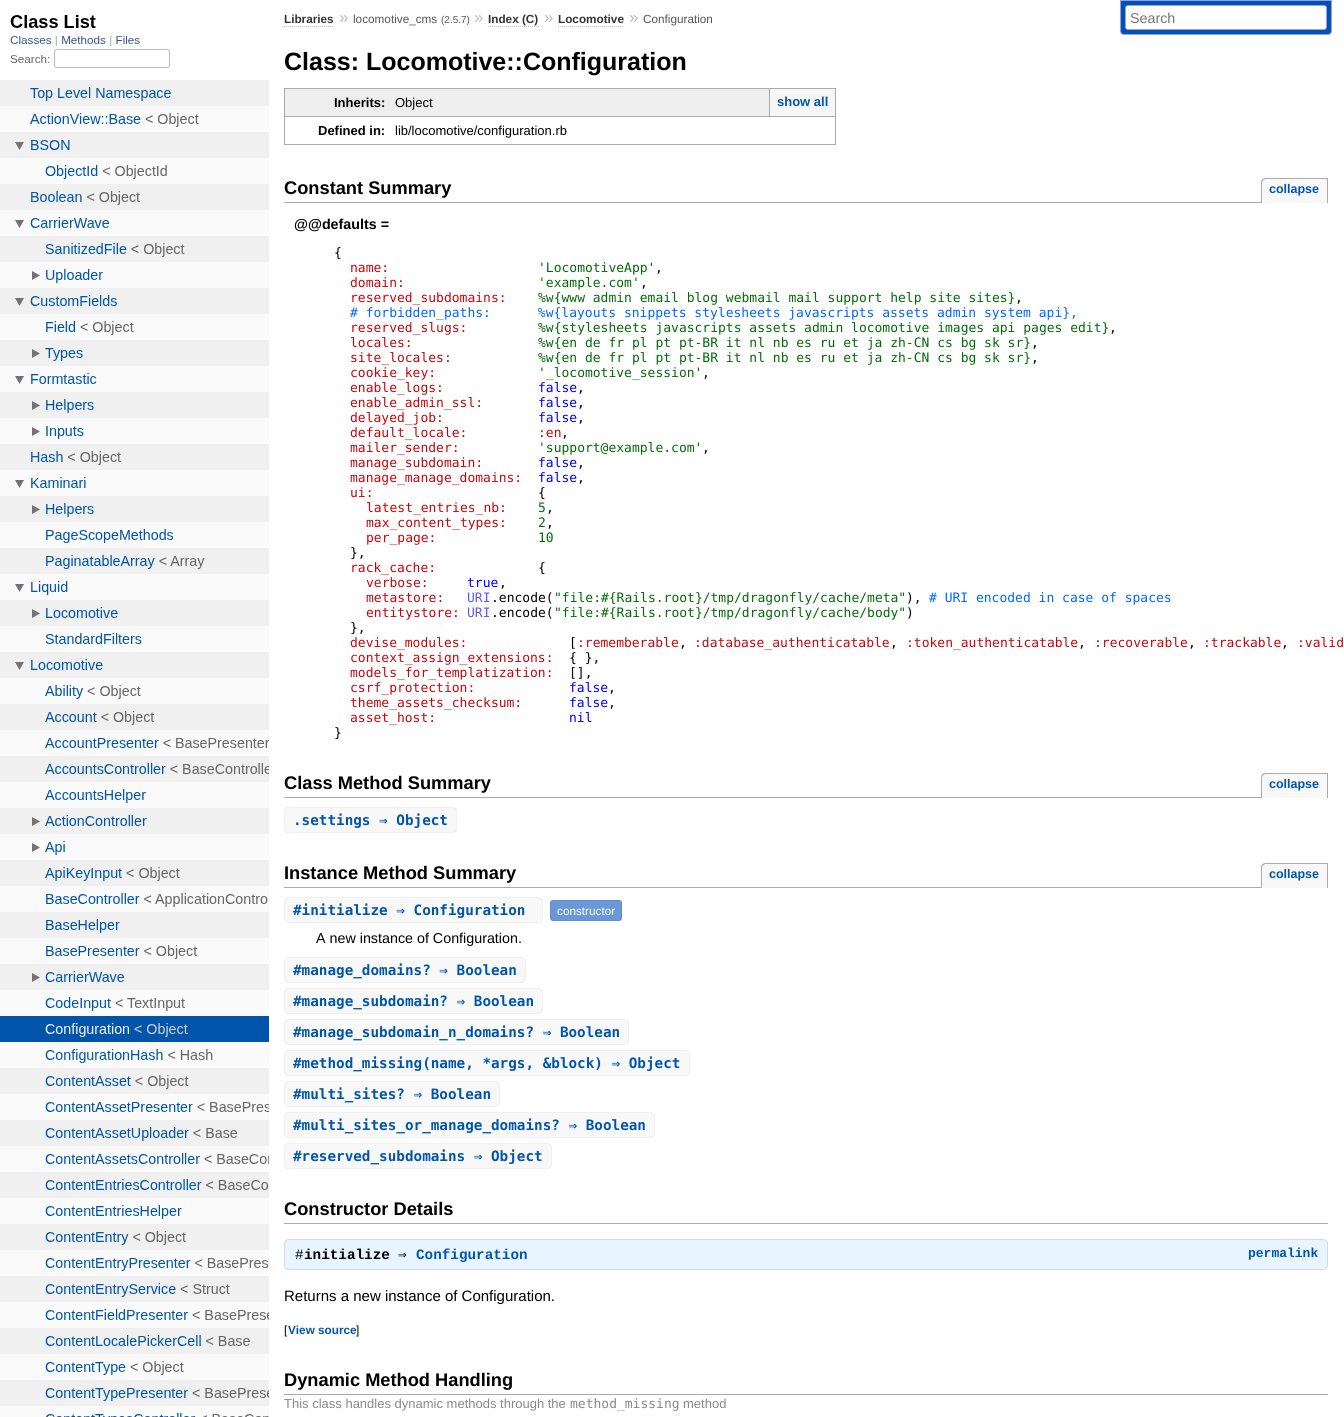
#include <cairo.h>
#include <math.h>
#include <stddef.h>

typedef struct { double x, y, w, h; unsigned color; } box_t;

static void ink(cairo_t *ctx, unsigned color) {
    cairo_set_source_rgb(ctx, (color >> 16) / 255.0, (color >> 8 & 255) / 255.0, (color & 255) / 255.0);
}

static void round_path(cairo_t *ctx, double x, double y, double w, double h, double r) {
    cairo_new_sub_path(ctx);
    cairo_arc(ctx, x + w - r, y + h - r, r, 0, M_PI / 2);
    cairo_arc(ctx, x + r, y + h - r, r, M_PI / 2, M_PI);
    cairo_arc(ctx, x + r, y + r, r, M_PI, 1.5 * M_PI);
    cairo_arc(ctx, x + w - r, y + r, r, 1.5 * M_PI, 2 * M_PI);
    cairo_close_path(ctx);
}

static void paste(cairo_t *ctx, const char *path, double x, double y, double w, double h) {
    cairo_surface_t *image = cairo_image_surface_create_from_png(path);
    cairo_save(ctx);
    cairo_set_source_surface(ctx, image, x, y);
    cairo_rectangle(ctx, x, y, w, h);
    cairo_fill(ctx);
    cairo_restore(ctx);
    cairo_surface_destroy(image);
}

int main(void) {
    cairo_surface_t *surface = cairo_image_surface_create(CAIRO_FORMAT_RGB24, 1344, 1417);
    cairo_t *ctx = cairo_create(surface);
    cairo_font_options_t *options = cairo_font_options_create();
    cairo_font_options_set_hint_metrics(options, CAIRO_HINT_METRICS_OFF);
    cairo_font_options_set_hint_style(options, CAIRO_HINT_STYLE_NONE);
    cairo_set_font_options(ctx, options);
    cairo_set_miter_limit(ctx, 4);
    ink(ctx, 0xFFFFFF);
    cairo_paint(ctx);
    paste(ctx, "media/1.png", 0, 15, 269, 1402);
    cairo_select_font_face(ctx, "Liberation Sans", CAIRO_FONT_SLANT_NORMAL, CAIRO_FONT_WEIGHT_BOLD);
    cairo_set_font_size(ctx, 11.75);
    ink(ctx, 0x333333);
    cairo_move_to(ctx, 284, 23);
    cairo_show_text(ctx, "Libraries");
    cairo_new_path(ctx);
    cairo_move_to(ctx, 284, 26.5);
    cairo_line_to(ctx, 334, 26.5);
    ink(ctx, 0xBBBBDD);
    cairo_set_line_width(ctx, 1);
    cairo_set_dash(ctx, (double[]){1, 1}, 2, 0);
    cairo_stroke(ctx);
    cairo_select_font_face(ctx, "Liberation Sans", CAIRO_FONT_SLANT_NORMAL, CAIRO_FONT_WEIGHT_NORMAL);
    cairo_set_font_size(ctx, 17);
    ink(ctx, 0xBBBBBB);
    cairo_move_to(ctx, 339, 23);
    cairo_show_text(ctx, "»");
    cairo_set_font_size(ctx, 11.75);
    ink(ctx, 0x555555);
    cairo_move_to(ctx, 353, 23);
    cairo_show_text(ctx, "locomotive_cms");
    cairo_set_font_size(ctx, 10);
    cairo_move_to(ctx, 441, 23);
    cairo_show_text(ctx, "(2.5.7)");
    cairo_set_font_size(ctx, 17);
    ink(ctx, 0xBBBBBB);
    cairo_move_to(ctx, 474, 23);
    cairo_show_text(ctx, "»");
    cairo_select_font_face(ctx, "Liberation Sans", CAIRO_FONT_SLANT_NORMAL, CAIRO_FONT_WEIGHT_BOLD);
    cairo_set_font_size(ctx, 11.75);
    ink(ctx, 0x333333);
    cairo_move_to(ctx, 488, 23);
    cairo_show_text(ctx, "Index (C)");
    cairo_new_path(ctx);
    cairo_move_to(ctx, 488, 26.5);
    cairo_line_to(ctx, 539, 26.5);
    ink(ctx, 0xBBBBDD);
    cairo_stroke(ctx);
    cairo_select_font_face(ctx, "Liberation Sans", CAIRO_FONT_SLANT_NORMAL, CAIRO_FONT_WEIGHT_NORMAL);
    cairo_set_font_size(ctx, 17);
    ink(ctx, 0xBBBBBB);
    cairo_move_to(ctx, 544, 23);
    cairo_show_text(ctx, "»");
    cairo_select_font_face(ctx, "Liberation Sans", CAIRO_FONT_SLANT_NORMAL, CAIRO_FONT_WEIGHT_BOLD);
    cairo_set_font_size(ctx, 11.75);
    ink(ctx, 0x333333);
    cairo_move_to(ctx, 558, 23);
    cairo_show_text(ctx, "Locomotive");
    cairo_new_path(ctx);
    cairo_move_to(ctx, 558, 26.5);
    cairo_line_to(ctx, 624, 26.5);
    ink(ctx, 0xBBBBDD);
    cairo_stroke(ctx);
    cairo_select_font_face(ctx, "Liberation Sans", CAIRO_FONT_SLANT_NORMAL, CAIRO_FONT_WEIGHT_NORMAL);
    cairo_set_font_size(ctx, 17);
    ink(ctx, 0xBBBBBB);
    cairo_move_to(ctx, 629, 23);
    cairo_show_text(ctx, "»");
    cairo_set_font_size(ctx, 11.75);
    ink(ctx, 0x555555);
    cairo_move_to(ctx, 643, 23);
    cairo_show_text(ctx, "Configuration");
    ink(ctx, 0x0055AA);
    cairo_new_path(ctx);
    cairo_move_to(ctx, 1120.5, 0.5);
    cairo_line_to(ctx, 1331.5, 0.5);
    cairo_line_to(ctx, 1331.5, 31);
    cairo_curve_to(ctx, 1331.5, 33, 1330, 34.5, 1328, 34.5);
    cairo_line_to(ctx, 1124, 34.5);
    cairo_curve_to(ctx, 1122, 34.5, 1120.5, 33, 1120.5, 31);
    cairo_close_path(ctx);
    cairo_fill_preserve(ctx);
    ink(ctx, 0x9999FF);
    cairo_set_dash(ctx, NULL, 0, 0);
    cairo_stroke(ctx);
    ink(ctx, 0xFFFFFF);
    round_path(ctx, 1125.5, 5.5, 201, 24, 2.5);
    cairo_fill_preserve(ctx);
    ink(ctx, 0x9999FF);
    cairo_stroke(ctx);
    cairo_set_font_size(ctx, 14.3);
    ink(ctx, 0x757575);
    cairo_move_to(ctx, 1130, 23);
    cairo_show_text(ctx, "Search");
    cairo_select_font_face(ctx, "Liberation Sans", CAIRO_FONT_SLANT_NORMAL, CAIRO_FONT_WEIGHT_BOLD);
    cairo_set_font_size(ctx, 25);
    ink(ctx, 0x000000);
    cairo_move_to(ctx, 284, 70);
    cairo_show_text(ctx, "Class: Locomotive::Configuration");
    {
        static const box_t items[] = {
            {285, 89, 484, 27, 0xEEEEEE},
            {284, 88, 552, 1, 0xAAAAAA},
            {284, 88, 1, 28, 0xAAAAAA},
        };
        for (size_t i = 0; i < sizeof items / sizeof *items; i++) {
            ink(ctx, items[i].color);
            cairo_rectangle(ctx, items[i].x, items[i].y, items[i].w, items[i].h);
            cairo_fill(ctx);
        }
    }
    cairo_set_font_size(ctx, 13);
    ink(ctx, 0x000000);
    cairo_move_to(ctx, 334, 107);
    cairo_show_text(ctx, "Inherits:");
    ink(ctx, 0xAAAAAA);
    cairo_rectangle(ctx, 284, 116, 552, 1);
    cairo_fill(ctx);
    cairo_rectangle(ctx, 835, 88, 1, 57);
    cairo_fill(ctx);
    cairo_select_font_face(ctx, "Liberation Sans", CAIRO_FONT_SLANT_NORMAL, CAIRO_FONT_WEIGHT_NORMAL);
    ink(ctx, 0x000000);
    cairo_move_to(ctx, 395, 107);
    cairo_show_text(ctx, "Object");
    ink(ctx, 0xF6F6F6);
    cairo_rectangle(ctx, 770, 89, 65, 27);
    cairo_fill(ctx);
    ink(ctx, 0xAAAAAA);
    cairo_rectangle(ctx, 769, 89, 1, 27);
    cairo_fill(ctx);
    cairo_select_font_face(ctx, "Liberation Sans", CAIRO_FONT_SLANT_NORMAL, CAIRO_FONT_WEIGHT_BOLD);
    ink(ctx, 0x0055AA);
    cairo_move_to(ctx, 777, 106);
    cairo_show_text(ctx, "show all");
    ink(ctx, 0xAAAAAA);
    cairo_rectangle(ctx, 284, 144, 111, 1);
    cairo_fill(ctx);
    cairo_rectangle(ctx, 284, 116, 1, 29);
    cairo_fill(ctx);
    ink(ctx, 0x000000);
    cairo_move_to(ctx, 318, 135);
    cairo_show_text(ctx, "Defined in:");
    ink(ctx, 0xAAAAAA);
    cairo_rectangle(ctx, 395, 144, 441, 1);
    cairo_fill(ctx);
    cairo_select_font_face(ctx, "Liberation Sans", CAIRO_FONT_SLANT_NORMAL, CAIRO_FONT_WEIGHT_NORMAL);
    ink(ctx, 0x000000);
    cairo_move_to(ctx, 395, 135);
    cairo_show_text(ctx, "lib/locomotive/configuration.rb");
    ink(ctx, 0xAAAAAA);
    cairo_rectangle(ctx, 284, 202, 977, 1);
    cairo_fill(ctx);
    cairo_select_font_face(ctx, "Liberation Sans", CAIRO_FONT_SLANT_NORMAL, CAIRO_FONT_WEIGHT_BOLD);
    cairo_set_font_size(ctx, 18.25);
    ink(ctx, 0x000000);
    cairo_move_to(ctx, 284, 194);
    cairo_show_text(ctx, "Constant Summary");
    ink(ctx, 0xF8F8F8);
    cairo_new_path(ctx);
    cairo_move_to(ctx, 1266, 178);
    cairo_line_to(ctx, 1328, 178);
    cairo_line_to(ctx, 1328, 203);
    cairo_line_to(ctx, 1261, 203);
    cairo_line_to(ctx, 1261, 183);
    cairo_curve_to(ctx, 1261, 180, 1263, 178, 1266, 178);
    cairo_close_path(ctx);
    cairo_fill(ctx);
    ink(ctx, 0xAAAAAA);
    cairo_set_fill_rule(ctx, CAIRO_FILL_RULE_EVEN_ODD);
    cairo_new_path(ctx);
    cairo_move_to(ctx, 1266, 178);
    cairo_line_to(ctx, 1328, 178);
    cairo_line_to(ctx, 1328, 203);
    cairo_line_to(ctx, 1261, 203);
    cairo_line_to(ctx, 1261, 183);
    cairo_curve_to(ctx, 1261, 180, 1263, 178, 1266, 178);
    cairo_close_path(ctx);
    cairo_move_to(ctx, 1266, 179);
    cairo_line_to(ctx, 1327, 179);
    cairo_line_to(ctx, 1327, 203);
    cairo_line_to(ctx, 1262, 203);
    cairo_line_to(ctx, 1262, 183);
    cairo_curve_to(ctx, 1262, 181, 1264, 179, 1266, 179);
    cairo_close_path(ctx);
    cairo_fill(ctx);
    cairo_set_font_size(ctx, 12.5);
    ink(ctx, 0x0055AA);
    cairo_move_to(ctx, 1269, 193);
    cairo_show_text(ctx, "collapse");
    cairo_set_font_size(ctx, 14.3);
    ink(ctx, 0x000000);
    cairo_move_to(ctx, 294, 229);
    cairo_show_text(ctx, "@@defaults =");
    cairo_select_font_face(ctx, "DejaVu Sans Mono", CAIRO_FONT_SLANT_NORMAL, CAIRO_FONT_WEIGHT_NORMAL);
    cairo_set_font_size(ctx, 13);
    cairo_move_to(ctx, 334, 257);
    cairo_show_text(ctx, "{");
    ink(ctx, 0xC5060B);
    cairo_move_to(ctx, 350, 272);
    cairo_show_text(ctx, "name:");
    ink(ctx, 0x036A07);
    cairo_move_to(ctx, 538, 272);
    cairo_show_text(ctx, "'LocomotiveApp'");
    ink(ctx, 0x000000);
    cairo_move_to(ctx, 655, 272);
    cairo_show_text(ctx, ",");
    ink(ctx, 0xC5060B);
    cairo_move_to(ctx, 350, 287);
    cairo_show_text(ctx, "domain:");
    ink(ctx, 0x036A07);
    cairo_move_to(ctx, 538, 287);
    cairo_show_text(ctx, "'example.com'");
    ink(ctx, 0x000000);
    cairo_move_to(ctx, 640, 287);
    cairo_show_text(ctx, ",");
    ink(ctx, 0xC5060B);
    cairo_move_to(ctx, 350, 302);
    cairo_show_text(ctx, "reserved_subdomains:");
    ink(ctx, 0x036A07);
    cairo_move_to(ctx, 538, 302);
    cairo_show_text(ctx, "%w{www admin email blog webmail mail support help site sites}");
    ink(ctx, 0x000000);
    cairo_move_to(ctx, 1015, 302);
    cairo_show_text(ctx, ",");
    ink(ctx, 0x0066FF);
    cairo_move_to(ctx, 350, 317);
    cairo_show_text(ctx, "# forbidden_paths:      %w{layouts snippets stylesheets javascripts assets admin system api},");
    ink(ctx, 0xC5060B);
    cairo_move_to(ctx, 350, 332);
    cairo_show_text(ctx, "reserved_slugs:");
    ink(ctx, 0x036A07);
    cairo_move_to(ctx, 538, 332);
    cairo_show_text(ctx, "%w{stylesheets javascripts assets admin locomotive images api pages edit}");
    ink(ctx, 0x000000);
    cairo_move_to(ctx, 1109, 332);
    cairo_show_text(ctx, ",");
    ink(ctx, 0xC5060B);
    cairo_move_to(ctx, 350, 347);
    cairo_show_text(ctx, "locales:");
    ink(ctx, 0x036A07);
    cairo_move_to(ctx, 538, 347);
    cairo_show_text(ctx, "%w{en de fr pl pt pt-BR it nl nb es ru et ja zh-CN cs bg sk sr}");
    ink(ctx, 0x000000);
    cairo_move_to(ctx, 1031, 347);
    cairo_show_text(ctx, ",");
    ink(ctx, 0xC5060B);
    cairo_move_to(ctx, 350, 362);
    cairo_show_text(ctx, "site_locales:");
    ink(ctx, 0x036A07);
    cairo_move_to(ctx, 538, 362);
    cairo_show_text(ctx, "%w{en de fr pl pt pt-BR it nl nb es ru et ja zh-CN cs bg sk sr}");
    ink(ctx, 0x000000);
    cairo_move_to(ctx, 1031, 362);
    cairo_show_text(ctx, ",");
    ink(ctx, 0xC5060B);
    cairo_move_to(ctx, 350, 377);
    cairo_show_text(ctx, "cookie_key:");
    ink(ctx, 0x036A07);
    cairo_move_to(ctx, 538, 377);
    cairo_show_text(ctx, "'_locomotive_session'");
    ink(ctx, 0x000000);
    cairo_move_to(ctx, 702, 377);
    cairo_show_text(ctx, ",");
    ink(ctx, 0xC5060B);
    cairo_move_to(ctx, 350, 392);
    cairo_show_text(ctx, "enable_logs:");
    ink(ctx, 0x0000FF);
    cairo_move_to(ctx, 538, 392);
    cairo_show_text(ctx, "false");
    ink(ctx, 0x000000);
    cairo_move_to(ctx, 577, 392);
    cairo_show_text(ctx, ",");
    ink(ctx, 0xC5060B);
    cairo_move_to(ctx, 350, 407);
    cairo_show_text(ctx, "enable_admin_ssl:");
    ink(ctx, 0x0000FF);
    cairo_move_to(ctx, 538, 407);
    cairo_show_text(ctx, "false");
    ink(ctx, 0x000000);
    cairo_move_to(ctx, 577, 407);
    cairo_show_text(ctx, ",");
    ink(ctx, 0xC5060B);
    cairo_move_to(ctx, 350, 422);
    cairo_show_text(ctx, "delayed_job:");
    ink(ctx, 0x0000FF);
    cairo_move_to(ctx, 538, 422);
    cairo_show_text(ctx, "false");
    ink(ctx, 0x000000);
    cairo_move_to(ctx, 577, 422);
    cairo_show_text(ctx, ",");
    ink(ctx, 0xC5060B);
    cairo_move_to(ctx, 350, 437);
    cairo_show_text(ctx, "default_locale:");
    cairo_move_to(ctx, 538, 437);
    cairo_show_text(ctx, ":en");
    ink(ctx, 0x000000);
    cairo_move_to(ctx, 561, 437);
    cairo_show_text(ctx, ",");
    ink(ctx, 0xC5060B);
    cairo_move_to(ctx, 350, 452);
    cairo_show_text(ctx, "mailer_sender:");
    ink(ctx, 0x036A07);
    cairo_move_to(ctx, 538, 452);
    cairo_show_text(ctx, "'support@example.com'");
    ink(ctx, 0x000000);
    cairo_move_to(ctx, 702, 452);
    cairo_show_text(ctx, ",");
    ink(ctx, 0xC5060B);
    cairo_move_to(ctx, 350, 467);
    cairo_show_text(ctx, "manage_subdomain:");
    ink(ctx, 0x0000FF);
    cairo_move_to(ctx, 538, 467);
    cairo_show_text(ctx, "false");
    ink(ctx, 0x000000);
    cairo_move_to(ctx, 577, 467);
    cairo_show_text(ctx, ",");
    ink(ctx, 0xC5060B);
    cairo_move_to(ctx, 350, 482);
    cairo_show_text(ctx, "manage_manage_domains:");
    ink(ctx, 0x0000FF);
    cairo_move_to(ctx, 538, 482);
    cairo_show_text(ctx, "false");
    ink(ctx, 0x000000);
    cairo_move_to(ctx, 577, 482);
    cairo_show_text(ctx, ",");
    ink(ctx, 0xC5060B);
    cairo_move_to(ctx, 350, 497);
    cairo_show_text(ctx, "ui:");
    ink(ctx, 0x000000);
    cairo_move_to(ctx, 538, 497);
    cairo_show_text(ctx, "{");
    ink(ctx, 0xC5060B);
    cairo_move_to(ctx, 366, 512);
    cairo_show_text(ctx, "latest_entries_nb:");
    ink(ctx, 0x036A07);
    cairo_move_to(ctx, 538, 512);
    cairo_show_text(ctx, "5");
    ink(ctx, 0x000000);
    cairo_move_to(ctx, 546, 512);
    cairo_show_text(ctx, ",");
    ink(ctx, 0xC5060B);
    cairo_move_to(ctx, 366, 527);
    cairo_show_text(ctx, "max_content_types:");
    ink(ctx, 0x036A07);
    cairo_move_to(ctx, 538, 527);
    cairo_show_text(ctx, "2");
    ink(ctx, 0x000000);
    cairo_move_to(ctx, 546, 527);
    cairo_show_text(ctx, ",");
    ink(ctx, 0xC5060B);
    cairo_move_to(ctx, 366, 542);
    cairo_show_text(ctx, "per_page:");
    ink(ctx, 0x036A07);
    cairo_move_to(ctx, 538, 542);
    cairo_show_text(ctx, "10");
    ink(ctx, 0x000000);
    cairo_move_to(ctx, 350, 557);
    cairo_show_text(ctx, "},");
    ink(ctx, 0xC5060B);
    cairo_move_to(ctx, 350, 572);
    cairo_show_text(ctx, "rack_cache:");
    ink(ctx, 0x000000);
    cairo_move_to(ctx, 538, 572);
    cairo_show_text(ctx, "{");
    ink(ctx, 0xC5060B);
    cairo_move_to(ctx, 366, 587);
    cairo_show_text(ctx, "verbose:");
    ink(ctx, 0x0000FF);
    cairo_move_to(ctx, 467, 587);
    cairo_show_text(ctx, "true");
    ink(ctx, 0x000000);
    cairo_move_to(ctx, 499, 587);
    cairo_show_text(ctx, ",");
    ink(ctx, 0xC5060B);
    cairo_move_to(ctx, 366, 602);
    cairo_show_text(ctx, "metastore:");
    ink(ctx, 0x585CF6);
    cairo_move_to(ctx, 467, 602);
    cairo_show_text(ctx, "URI");
    ink(ctx, 0x000000);
    cairo_move_to(ctx, 491, 602);
    cairo_show_text(ctx, ".encode(");
    ink(ctx, 0x036A07);
    cairo_move_to(ctx, 554, 602);
    cairo_show_text(ctx, "\"file:#{Rails.root}/tmp/dragonfly/cache/meta\"");
    ink(ctx, 0x000000);
    cairo_move_to(ctx, 906, 602);
    cairo_show_text(ctx, "),");
    ink(ctx, 0x0066FF);
    cairo_move_to(ctx, 929, 602);
    cairo_show_text(ctx, "# URI encoded in case of spaces");
    ink(ctx, 0xC5060B);
    cairo_move_to(ctx, 366, 617);
    cairo_show_text(ctx, "entitystore:");
    ink(ctx, 0x585CF6);
    cairo_move_to(ctx, 467, 617);
    cairo_show_text(ctx, "URI");
    ink(ctx, 0x000000);
    cairo_move_to(ctx, 491, 617);
    cairo_show_text(ctx, ".encode(");
    ink(ctx, 0x036A07);
    cairo_move_to(ctx, 554, 617);
    cairo_show_text(ctx, "\"file:#{Rails.root}/tmp/dragonfly/cache/body\"");
    ink(ctx, 0x000000);
    cairo_move_to(ctx, 906, 617);
    cairo_show_text(ctx, ")");
    cairo_move_to(ctx, 350, 632);
    cairo_show_text(ctx, "},");
    ink(ctx, 0xC5060B);
    cairo_move_to(ctx, 350, 647);
    cairo_show_text(ctx, "devise_modules:");
    ink(ctx, 0x000000);
    cairo_move_to(ctx, 569, 647);
    cairo_show_text(ctx, "[");
    ink(ctx, 0xC5060B);
    cairo_move_to(ctx, 577, 647);
    cairo_show_text(ctx, ":rememberable");
    ink(ctx, 0x000000);
    cairo_move_to(ctx, 679, 647);
    cairo_show_text(ctx, ",");
    ink(ctx, 0xC5060B);
    cairo_move_to(ctx, 694, 647);
    cairo_show_text(ctx, ":database_authenticatable");
    ink(ctx, 0x000000);
    cairo_move_to(ctx, 890, 647);
    cairo_show_text(ctx, ",");
    ink(ctx, 0xC5060B);
    cairo_move_to(ctx, 906, 647);
    cairo_show_text(ctx, ":token_authenticatable");
    ink(ctx, 0x000000);
    cairo_move_to(ctx, 1078, 647);
    cairo_show_text(ctx, ",");
    ink(ctx, 0xC5060B);
    cairo_move_to(ctx, 1094, 647);
    cairo_show_text(ctx, ":recoverable");
    ink(ctx, 0x000000);
    cairo_move_to(ctx, 1188, 647);
    cairo_show_text(ctx, ",");
    ink(ctx, 0xC5060B);
    cairo_move_to(ctx, 1203, 647);
    cairo_show_text(ctx, ":trackable");
    ink(ctx, 0x000000);
    cairo_move_to(ctx, 1281, 647);
    cairo_show_text(ctx, ",");
    ink(ctx, 0xC5060B);
    cairo_move_to(ctx, 1297, 647);
    cairo_show_text(ctx, ":valid");
    cairo_move_to(ctx, 350, 662);
    cairo_show_text(ctx, "context_assign_extensions:");
    ink(ctx, 0x000000);
    cairo_move_to(ctx, 569, 662);
    cairo_show_text(ctx, "{ },");
    ink(ctx, 0xC5060B);
    cairo_move_to(ctx, 350, 677);
    cairo_show_text(ctx, "models_for_templatization:");
    ink(ctx, 0x000000);
    cairo_move_to(ctx, 569, 677);
    cairo_show_text(ctx, "[],");
    ink(ctx, 0xC5060B);
    cairo_move_to(ctx, 350, 692);
    cairo_show_text(ctx, "csrf_protection:");
    ink(ctx, 0x0000FF);
    cairo_move_to(ctx, 569, 692);
    cairo_show_text(ctx, "false");
    ink(ctx, 0x000000);
    cairo_move_to(ctx, 608, 692);
    cairo_show_text(ctx, ",");
    ink(ctx, 0xC5060B);
    cairo_move_to(ctx, 350, 707);
    cairo_show_text(ctx, "theme_assets_checksum:");
    ink(ctx, 0x0000FF);
    cairo_move_to(ctx, 569, 707);
    cairo_show_text(ctx, "false");
    ink(ctx, 0x000000);
    cairo_move_to(ctx, 608, 707);
    cairo_show_text(ctx, ",");
    ink(ctx, 0xC5060B);
    cairo_move_to(ctx, 350, 722);
    cairo_show_text(ctx, "asset_host:");
    ink(ctx, 0x0000FF);
    cairo_move_to(ctx, 569, 722);
    cairo_show_text(ctx, "nil");
    ink(ctx, 0x000000);
    cairo_move_to(ctx, 334, 737);
    cairo_show_text(ctx, "}");
    ink(ctx, 0xAAAAAA);
    cairo_rectangle(ctx, 284, 797, 977, 1);
    cairo_fill(ctx);
    cairo_select_font_face(ctx, "Liberation Sans", CAIRO_FONT_SLANT_NORMAL, CAIRO_FONT_WEIGHT_BOLD);
    cairo_set_font_size(ctx, 18.25);
    ink(ctx, 0x000000);
    cairo_move_to(ctx, 284, 789);
    cairo_show_text(ctx, "Class Method Summary");
    ink(ctx, 0xF8F8F8);
    cairo_new_path(ctx);
    cairo_move_to(ctx, 1266, 773);
    cairo_line_to(ctx, 1328, 773);
    cairo_line_to(ctx, 1328, 798);
    cairo_line_to(ctx, 1261, 798);
    cairo_line_to(ctx, 1261, 778);
    cairo_curve_to(ctx, 1261, 775, 1263, 773, 1266, 773);
    cairo_close_path(ctx);
    cairo_fill(ctx);
    ink(ctx, 0xAAAAAA);
    cairo_new_path(ctx);
    cairo_move_to(ctx, 1266, 773);
    cairo_line_to(ctx, 1328, 773);
    cairo_line_to(ctx, 1328, 798);
    cairo_line_to(ctx, 1261, 798);
    cairo_line_to(ctx, 1261, 778);
    cairo_curve_to(ctx, 1261, 775, 1263, 773, 1266, 773);
    cairo_close_path(ctx);
    cairo_move_to(ctx, 1266, 774);
    cairo_line_to(ctx, 1327, 774);
    cairo_line_to(ctx, 1327, 798);
    cairo_line_to(ctx, 1262, 798);
    cairo_line_to(ctx, 1262, 778);
    cairo_curve_to(ctx, 1262, 776, 1264, 774, 1266, 774);
    cairo_close_path(ctx);
    cairo_fill(ctx);
    cairo_set_font_size(ctx, 12.5);
    ink(ctx, 0x0055AA);
    cairo_move_to(ctx, 1269, 788);
    cairo_show_text(ctx, "collapse");
    ink(ctx, 0xF8F8F8);
    cairo_new_path(ctx);
    cairo_move_to(ctx, 289, 807);
    cairo_line_to(ctx, 302, 807);
    cairo_line_to(ctx, 302, 833);
    cairo_line_to(ctx, 289, 833);
    cairo_curve_to(ctx, 286, 833, 284, 831, 284, 828);
    cairo_line_to(ctx, 284, 812);
    cairo_curve_to(ctx, 284, 809, 286, 807, 289, 807);
    cairo_close_path(ctx);
    cairo_fill(ctx);
    ink(ctx, 0xF0F0F0);
    cairo_new_path(ctx);
    cairo_move_to(ctx, 289, 807);
    cairo_line_to(ctx, 302, 807);
    cairo_line_to(ctx, 302, 833);
    cairo_line_to(ctx, 289, 833);
    cairo_curve_to(ctx, 286, 833, 284, 831, 284, 828);
    cairo_line_to(ctx, 284, 812);
    cairo_curve_to(ctx, 284, 809, 286, 807, 289, 807);
    cairo_close_path(ctx);
    cairo_move_to(ctx, 289, 808);
    cairo_line_to(ctx, 302, 808);
    cairo_line_to(ctx, 302, 832);
    cairo_line_to(ctx, 289, 832);
    cairo_curve_to(ctx, 287, 832, 285, 830, 285, 828);
    cairo_line_to(ctx, 285, 812);
    cairo_curve_to(ctx, 285, 810, 287, 808, 289, 808);
    cairo_close_path(ctx);
    cairo_fill(ctx);
    ink(ctx, 0xF8F8F8);
    cairo_rectangle(ctx, 302, 808, 69, 24);
    cairo_fill(ctx);
    cairo_new_path(ctx);
    cairo_move_to(ctx, 371, 807);
    cairo_line_to(ctx, 452, 807);
    cairo_curve_to(ctx, 455, 807, 457, 809, 457, 812);
    cairo_line_to(ctx, 457, 828);
    cairo_curve_to(ctx, 457, 831, 455, 833, 452, 833);
    cairo_line_to(ctx, 371, 833);
    cairo_close_path(ctx);
    cairo_fill(ctx);
    ink(ctx, 0xF0F0F0);
    cairo_new_path(ctx);
    cairo_move_to(ctx, 371, 807);
    cairo_line_to(ctx, 452, 807);
    cairo_curve_to(ctx, 455, 807, 457, 809, 457, 812);
    cairo_line_to(ctx, 457, 828);
    cairo_curve_to(ctx, 457, 831, 455, 833, 452, 833);
    cairo_line_to(ctx, 371, 833);
    cairo_close_path(ctx);
    cairo_move_to(ctx, 371, 808);
    cairo_line_to(ctx, 452, 808);
    cairo_curve_to(ctx, 454, 808, 456, 810, 456, 812);
    cairo_line_to(ctx, 456, 828);
    cairo_curve_to(ctx, 456, 830, 454, 832, 452, 832);
    cairo_line_to(ctx, 371, 832);
    cairo_close_path(ctx);
    cairo_fill(ctx);
    cairo_select_font_face(ctx, "DejaVu Sans Mono", CAIRO_FONT_SLANT_NORMAL, CAIRO_FONT_WEIGHT_BOLD);
    cairo_set_font_size(ctx, 14.3);
    ink(ctx, 0x0055AA);
    cairo_move_to(ctx, 293, 825);
    cairo_show_text(ctx, ".settings ⇒ Object");
    {
        static const box_t items[] = {
            {302, 807, 69, 1, 0xF0F0F0},
            {302, 832, 69, 1, 0xF0F0F0},
            {284, 887, 977, 1, 0xAAAAAA},
        };
        for (size_t i = 0; i < sizeof items / sizeof *items; i++) {
            ink(ctx, items[i].color);
            cairo_rectangle(ctx, items[i].x, items[i].y, items[i].w, items[i].h);
            cairo_fill(ctx);
        }
    }
    cairo_select_font_face(ctx, "Liberation Sans", CAIRO_FONT_SLANT_NORMAL, CAIRO_FONT_WEIGHT_BOLD);
    cairo_set_font_size(ctx, 18.25);
    ink(ctx, 0x000000);
    cairo_move_to(ctx, 284, 879);
    cairo_show_text(ctx, "Instance Method Summary");
    ink(ctx, 0xF8F8F8);
    cairo_new_path(ctx);
    cairo_move_to(ctx, 1266, 863);
    cairo_line_to(ctx, 1328, 863);
    cairo_line_to(ctx, 1328, 888);
    cairo_line_to(ctx, 1261, 888);
    cairo_line_to(ctx, 1261, 868);
    cairo_curve_to(ctx, 1261, 865, 1263, 863, 1266, 863);
    cairo_close_path(ctx);
    cairo_fill(ctx);
    ink(ctx, 0xAAAAAA);
    cairo_new_path(ctx);
    cairo_move_to(ctx, 1266, 863);
    cairo_line_to(ctx, 1328, 863);
    cairo_line_to(ctx, 1328, 888);
    cairo_line_to(ctx, 1261, 888);
    cairo_line_to(ctx, 1261, 868);
    cairo_curve_to(ctx, 1261, 865, 1263, 863, 1266, 863);
    cairo_close_path(ctx);
    cairo_move_to(ctx, 1266, 864);
    cairo_line_to(ctx, 1327, 864);
    cairo_line_to(ctx, 1327, 888);
    cairo_line_to(ctx, 1262, 888);
    cairo_line_to(ctx, 1262, 868);
    cairo_curve_to(ctx, 1262, 866, 1264, 864, 1266, 864);
    cairo_close_path(ctx);
    cairo_fill(ctx);
    cairo_set_font_size(ctx, 12.5);
    ink(ctx, 0x0055AA);
    cairo_move_to(ctx, 1269, 878);
    cairo_show_text(ctx, "collapse");
    ink(ctx, 0xF8F8F8);
    cairo_new_path(ctx);
    cairo_move_to(ctx, 289, 897);
    cairo_line_to(ctx, 302, 897);
    cairo_line_to(ctx, 302, 923);
    cairo_line_to(ctx, 289, 923);
    cairo_curve_to(ctx, 286, 923, 284, 921, 284, 918);
    cairo_line_to(ctx, 284, 902);
    cairo_curve_to(ctx, 284, 899, 286, 897, 289, 897);
    cairo_close_path(ctx);
    cairo_fill(ctx);
    ink(ctx, 0xF0F0F0);
    cairo_new_path(ctx);
    cairo_move_to(ctx, 289, 897);
    cairo_line_to(ctx, 302, 897);
    cairo_line_to(ctx, 302, 923);
    cairo_line_to(ctx, 289, 923);
    cairo_curve_to(ctx, 286, 923, 284, 921, 284, 918);
    cairo_line_to(ctx, 284, 902);
    cairo_curve_to(ctx, 284, 899, 286, 897, 289, 897);
    cairo_close_path(ctx);
    cairo_move_to(ctx, 289, 898);
    cairo_line_to(ctx, 302, 898);
    cairo_line_to(ctx, 302, 922);
    cairo_line_to(ctx, 289, 922);
    cairo_curve_to(ctx, 287, 922, 285, 920, 285, 918);
    cairo_line_to(ctx, 285, 902);
    cairo_curve_to(ctx, 285, 900, 287, 898, 289, 898);
    cairo_close_path(ctx);
    cairo_fill(ctx);
    ink(ctx, 0xF8F8F8);
    cairo_rectangle(ctx, 302, 898, 86, 24);
    cairo_fill(ctx);
    cairo_new_path(ctx);
    cairo_move_to(ctx, 388, 897);
    cairo_line_to(ctx, 538, 897);
    cairo_curve_to(ctx, 541, 897, 543, 899, 543, 902);
    cairo_line_to(ctx, 543, 918);
    cairo_curve_to(ctx, 543, 921, 541, 923, 538, 923);
    cairo_line_to(ctx, 388, 923);
    cairo_close_path(ctx);
    cairo_fill(ctx);
    ink(ctx, 0xF0F0F0);
    cairo_new_path(ctx);
    cairo_move_to(ctx, 388, 897);
    cairo_line_to(ctx, 538, 897);
    cairo_curve_to(ctx, 541, 897, 543, 899, 543, 902);
    cairo_line_to(ctx, 543, 918);
    cairo_curve_to(ctx, 543, 921, 541, 923, 538, 923);
    cairo_line_to(ctx, 388, 923);
    cairo_close_path(ctx);
    cairo_move_to(ctx, 388, 898);
    cairo_line_to(ctx, 538, 898);
    cairo_curve_to(ctx, 540, 898, 542, 900, 542, 902);
    cairo_line_to(ctx, 542, 918);
    cairo_curve_to(ctx, 542, 920, 540, 922, 538, 922);
    cairo_line_to(ctx, 388, 922);
    cairo_close_path(ctx);
    cairo_fill(ctx);
    cairo_select_font_face(ctx, "DejaVu Sans Mono", CAIRO_FONT_SLANT_NORMAL, CAIRO_FONT_WEIGHT_BOLD);
    cairo_set_font_size(ctx, 14.3);
    ink(ctx, 0x0055AA);
    cairo_move_to(ctx, 293, 915);
    cairo_show_text(ctx, "#initialize ⇒ Configuration");
    ink(ctx, 0xF0F0F0);
    cairo_rectangle(ctx, 302, 897, 86, 1);
    cairo_fill(ctx);
    cairo_rectangle(ctx, 302, 922, 86, 1);
    cairo_fill(ctx);
    ink(ctx, 0x6A98D6);
    round_path(ctx, 550.5, 900.5, 71, 20, 2.5);
    cairo_fill_preserve(ctx);
    ink(ctx, 0x6689D6);
    cairo_stroke(ctx);
    cairo_select_font_face(ctx, "Liberation Sans", CAIRO_FONT_SLANT_NORMAL, CAIRO_FONT_WEIGHT_NORMAL);
    cairo_set_font_size(ctx, 11.75);
    ink(ctx, 0xFFFFFF);
    cairo_move_to(ctx, 557, 915);
    cairo_show_text(ctx, "constructor");
    cairo_set_font_size(ctx, 14.3);
    ink(ctx, 0x000000);
    cairo_move_to(ctx, 316, 943);
    cairo_show_text(ctx, "A new instance of Configuration.");
    ink(ctx, 0xF8F8F8);
    cairo_new_path(ctx);
    cairo_move_to(ctx, 289, 957);
    cairo_line_to(ctx, 302, 957);
    cairo_line_to(ctx, 302, 983);
    cairo_line_to(ctx, 289, 983);
    cairo_curve_to(ctx, 286, 983, 284, 981, 284, 978);
    cairo_line_to(ctx, 284, 962);
    cairo_curve_to(ctx, 284, 959, 286, 957, 289, 957);
    cairo_close_path(ctx);
    cairo_fill(ctx);
    ink(ctx, 0xF0F0F0);
    cairo_new_path(ctx);
    cairo_move_to(ctx, 289, 957);
    cairo_line_to(ctx, 302, 957);
    cairo_line_to(ctx, 302, 983);
    cairo_line_to(ctx, 289, 983);
    cairo_curve_to(ctx, 286, 983, 284, 981, 284, 978);
    cairo_line_to(ctx, 284, 962);
    cairo_curve_to(ctx, 284, 959, 286, 957, 289, 957);
    cairo_close_path(ctx);
    cairo_move_to(ctx, 289, 958);
    cairo_line_to(ctx, 302, 958);
    cairo_line_to(ctx, 302, 982);
    cairo_line_to(ctx, 289, 982);
    cairo_curve_to(ctx, 287, 982, 285, 980, 285, 978);
    cairo_line_to(ctx, 285, 962);
    cairo_curve_to(ctx, 285, 960, 287, 958, 289, 958);
    cairo_close_path(ctx);
    cairo_fill(ctx);
    ink(ctx, 0xF8F8F8);
    cairo_rectangle(ctx, 302, 958, 129, 24);
    cairo_fill(ctx);
    cairo_new_path(ctx);
    cairo_move_to(ctx, 431, 957);
    cairo_line_to(ctx, 521, 957);
    cairo_curve_to(ctx, 524, 957, 526, 959, 526, 962);
    cairo_line_to(ctx, 526, 978);
    cairo_curve_to(ctx, 526, 981, 524, 983, 521, 983);
    cairo_line_to(ctx, 431, 983);
    cairo_close_path(ctx);
    cairo_fill(ctx);
    ink(ctx, 0xF0F0F0);
    cairo_new_path(ctx);
    cairo_move_to(ctx, 431, 957);
    cairo_line_to(ctx, 521, 957);
    cairo_curve_to(ctx, 524, 957, 526, 959, 526, 962);
    cairo_line_to(ctx, 526, 978);
    cairo_curve_to(ctx, 526, 981, 524, 983, 521, 983);
    cairo_line_to(ctx, 431, 983);
    cairo_close_path(ctx);
    cairo_move_to(ctx, 431, 958);
    cairo_line_to(ctx, 521, 958);
    cairo_curve_to(ctx, 523, 958, 525, 960, 525, 962);
    cairo_line_to(ctx, 525, 978);
    cairo_curve_to(ctx, 525, 980, 523, 982, 521, 982);
    cairo_line_to(ctx, 431, 982);
    cairo_close_path(ctx);
    cairo_fill(ctx);
    cairo_select_font_face(ctx, "DejaVu Sans Mono", CAIRO_FONT_SLANT_NORMAL, CAIRO_FONT_WEIGHT_BOLD);
    ink(ctx, 0x0055AA);
    cairo_move_to(ctx, 293, 975);
    cairo_show_text(ctx, "#manage_domains? ⇒ Boolean");
    ink(ctx, 0xF0F0F0);
    cairo_rectangle(ctx, 302, 957, 129, 1);
    cairo_fill(ctx);
    cairo_rectangle(ctx, 302, 982, 129, 1);
    cairo_fill(ctx);
    ink(ctx, 0xF8F8F8);
    cairo_new_path(ctx);
    cairo_move_to(ctx, 289, 988);
    cairo_line_to(ctx, 302, 988);
    cairo_line_to(ctx, 302, 1014);
    cairo_line_to(ctx, 289, 1014);
    cairo_curve_to(ctx, 286, 1014, 284, 1012, 284, 1009);
    cairo_line_to(ctx, 284, 993);
    cairo_curve_to(ctx, 284, 990, 286, 988, 289, 988);
    cairo_close_path(ctx);
    cairo_fill(ctx);
    ink(ctx, 0xF0F0F0);
    cairo_new_path(ctx);
    cairo_move_to(ctx, 289, 988);
    cairo_line_to(ctx, 302, 988);
    cairo_line_to(ctx, 302, 1014);
    cairo_line_to(ctx, 289, 1014);
    cairo_curve_to(ctx, 286, 1014, 284, 1012, 284, 1009);
    cairo_line_to(ctx, 284, 993);
    cairo_curve_to(ctx, 284, 990, 286, 988, 289, 988);
    cairo_close_path(ctx);
    cairo_move_to(ctx, 289, 989);
    cairo_line_to(ctx, 302, 989);
    cairo_line_to(ctx, 302, 1013);
    cairo_line_to(ctx, 289, 1013);
    cairo_curve_to(ctx, 287, 1013, 285, 1011, 285, 1009);
    cairo_line_to(ctx, 285, 993);
    cairo_curve_to(ctx, 285, 991, 287, 989, 289, 989);
    cairo_close_path(ctx);
    cairo_fill(ctx);
    ink(ctx, 0xF8F8F8);
    cairo_rectangle(ctx, 302, 989, 146, 24);
    cairo_fill(ctx);
    cairo_new_path(ctx);
    cairo_move_to(ctx, 448, 988);
    cairo_line_to(ctx, 538, 988);
    cairo_curve_to(ctx, 541, 988, 543, 990, 543, 993);
    cairo_line_to(ctx, 543, 1009);
    cairo_curve_to(ctx, 543, 1012, 541, 1014, 538, 1014);
    cairo_line_to(ctx, 448, 1014);
    cairo_close_path(ctx);
    cairo_fill(ctx);
    ink(ctx, 0xF0F0F0);
    cairo_new_path(ctx);
    cairo_move_to(ctx, 448, 988);
    cairo_line_to(ctx, 538, 988);
    cairo_curve_to(ctx, 541, 988, 543, 990, 543, 993);
    cairo_line_to(ctx, 543, 1009);
    cairo_curve_to(ctx, 543, 1012, 541, 1014, 538, 1014);
    cairo_line_to(ctx, 448, 1014);
    cairo_close_path(ctx);
    cairo_move_to(ctx, 448, 989);
    cairo_line_to(ctx, 538, 989);
    cairo_curve_to(ctx, 540, 989, 542, 991, 542, 993);
    cairo_line_to(ctx, 542, 1009);
    cairo_curve_to(ctx, 542, 1011, 540, 1013, 538, 1013);
    cairo_line_to(ctx, 448, 1013);
    cairo_close_path(ctx);
    cairo_fill(ctx);
    ink(ctx, 0x0055AA);
    cairo_move_to(ctx, 293, 1006);
    cairo_show_text(ctx, "#manage_subdomain? ⇒ Boolean");
    ink(ctx, 0xF0F0F0);
    cairo_rectangle(ctx, 302, 988, 146, 1);
    cairo_fill(ctx);
    cairo_rectangle(ctx, 302, 1013, 146, 1);
    cairo_fill(ctx);
    ink(ctx, 0xF8F8F8);
    cairo_new_path(ctx);
    cairo_move_to(ctx, 289, 1019);
    cairo_line_to(ctx, 302, 1019);
    cairo_line_to(ctx, 302, 1045);
    cairo_line_to(ctx, 289, 1045);
    cairo_curve_to(ctx, 286, 1045, 284, 1043, 284, 1040);
    cairo_line_to(ctx, 284, 1024);
    cairo_curve_to(ctx, 284, 1021, 286, 1019, 289, 1019);
    cairo_close_path(ctx);
    cairo_fill(ctx);
    ink(ctx, 0xF0F0F0);
    cairo_new_path(ctx);
    cairo_move_to(ctx, 289, 1019);
    cairo_line_to(ctx, 302, 1019);
    cairo_line_to(ctx, 302, 1045);
    cairo_line_to(ctx, 289, 1045);
    cairo_curve_to(ctx, 286, 1045, 284, 1043, 284, 1040);
    cairo_line_to(ctx, 284, 1024);
    cairo_curve_to(ctx, 284, 1021, 286, 1019, 289, 1019);
    cairo_close_path(ctx);
    cairo_move_to(ctx, 289, 1020);
    cairo_line_to(ctx, 302, 1020);
    cairo_line_to(ctx, 302, 1044);
    cairo_line_to(ctx, 289, 1044);
    cairo_curve_to(ctx, 287, 1044, 285, 1042, 285, 1040);
    cairo_line_to(ctx, 285, 1024);
    cairo_curve_to(ctx, 285, 1022, 287, 1020, 289, 1020);
    cairo_close_path(ctx);
    cairo_fill(ctx);
    ink(ctx, 0xF8F8F8);
    cairo_rectangle(ctx, 302, 1020, 232, 24);
    cairo_fill(ctx);
    cairo_new_path(ctx);
    cairo_move_to(ctx, 534, 1019);
    cairo_line_to(ctx, 624, 1019);
    cairo_curve_to(ctx, 627, 1019, 629, 1021, 629, 1024);
    cairo_line_to(ctx, 629, 1040);
    cairo_curve_to(ctx, 629, 1043, 627, 1045, 624, 1045);
    cairo_line_to(ctx, 534, 1045);
    cairo_close_path(ctx);
    cairo_fill(ctx);
    ink(ctx, 0xF0F0F0);
    cairo_new_path(ctx);
    cairo_move_to(ctx, 534, 1019);
    cairo_line_to(ctx, 624, 1019);
    cairo_curve_to(ctx, 627, 1019, 629, 1021, 629, 1024);
    cairo_line_to(ctx, 629, 1040);
    cairo_curve_to(ctx, 629, 1043, 627, 1045, 624, 1045);
    cairo_line_to(ctx, 534, 1045);
    cairo_close_path(ctx);
    cairo_move_to(ctx, 534, 1020);
    cairo_line_to(ctx, 624, 1020);
    cairo_curve_to(ctx, 626, 1020, 628, 1022, 628, 1024);
    cairo_line_to(ctx, 628, 1040);
    cairo_curve_to(ctx, 628, 1042, 626, 1044, 624, 1044);
    cairo_line_to(ctx, 534, 1044);
    cairo_close_path(ctx);
    cairo_fill(ctx);
    ink(ctx, 0x0055AA);
    cairo_move_to(ctx, 293, 1037);
    cairo_show_text(ctx, "#manage_subdomain_n_domains? ⇒ Boolean");
    ink(ctx, 0xF0F0F0);
    cairo_rectangle(ctx, 302, 1019, 232, 1);
    cairo_fill(ctx);
    cairo_rectangle(ctx, 302, 1044, 232, 1);
    cairo_fill(ctx);
    ink(ctx, 0xF8F8F8);
    cairo_new_path(ctx);
    cairo_move_to(ctx, 289, 1050);
    cairo_line_to(ctx, 302, 1050);
    cairo_line_to(ctx, 302, 1076);
    cairo_line_to(ctx, 289, 1076);
    cairo_curve_to(ctx, 286, 1076, 284, 1074, 284, 1071);
    cairo_line_to(ctx, 284, 1055);
    cairo_curve_to(ctx, 284, 1052, 286, 1050, 289, 1050);
    cairo_close_path(ctx);
    cairo_fill(ctx);
    ink(ctx, 0xF0F0F0);
    cairo_new_path(ctx);
    cairo_move_to(ctx, 289, 1050);
    cairo_line_to(ctx, 302, 1050);
    cairo_line_to(ctx, 302, 1076);
    cairo_line_to(ctx, 289, 1076);
    cairo_curve_to(ctx, 286, 1076, 284, 1074, 284, 1071);
    cairo_line_to(ctx, 284, 1055);
    cairo_curve_to(ctx, 284, 1052, 286, 1050, 289, 1050);
    cairo_close_path(ctx);
    cairo_move_to(ctx, 289, 1051);
    cairo_line_to(ctx, 302, 1051);
    cairo_line_to(ctx, 302, 1075);
    cairo_line_to(ctx, 289, 1075);
    cairo_curve_to(ctx, 287, 1075, 285, 1073, 285, 1071);
    cairo_line_to(ctx, 285, 1055);
    cairo_curve_to(ctx, 285, 1053, 287, 1051, 289, 1051);
    cairo_close_path(ctx);
    cairo_fill(ctx);
    ink(ctx, 0xF8F8F8);
    cairo_rectangle(ctx, 302, 1051, 121, 24);
    cairo_fill(ctx);
    cairo_new_path(ctx);
    cairo_move_to(ctx, 423, 1050);
    cairo_line_to(ctx, 685, 1050);
    cairo_curve_to(ctx, 688, 1050, 690, 1052, 690, 1055);
    cairo_line_to(ctx, 690, 1071);
    cairo_curve_to(ctx, 690, 1074, 688, 1076, 685, 1076);
    cairo_line_to(ctx, 423, 1076);
    cairo_close_path(ctx);
    cairo_fill(ctx);
    ink(ctx, 0xF0F0F0);
    cairo_new_path(ctx);
    cairo_move_to(ctx, 423, 1050);
    cairo_line_to(ctx, 685, 1050);
    cairo_curve_to(ctx, 692, 1050, 690, 1059, 690, 1063);
    cairo_curve_to(ctx, 690, 1067, 692, 1076, 685, 1076);
    cairo_line_to(ctx, 423, 1076);
    cairo_close_path(ctx);
    cairo_move_to(ctx, 423, 1051);
    cairo_line_to(ctx, 685, 1051);
    cairo_curve_to(ctx, 687, 1051, 689, 1053, 689, 1055);
    cairo_line_to(ctx, 689, 1071);
    cairo_curve_to(ctx, 689, 1073, 687, 1075, 685, 1075);
    cairo_line_to(ctx, 423, 1075);
    cairo_close_path(ctx);
    cairo_fill(ctx);
    ink(ctx, 0x0055AA);
    cairo_move_to(ctx, 293, 1068);
    cairo_show_text(ctx, "#method_missing(name, *args, &block) ⇒ Object");
    ink(ctx, 0xF0F0F0);
    cairo_rectangle(ctx, 302, 1050, 121, 1);
    cairo_fill(ctx);
    cairo_rectangle(ctx, 302, 1075, 121, 1);
    cairo_fill(ctx);
    ink(ctx, 0xF8F8F8);
    cairo_new_path(ctx);
    cairo_move_to(ctx, 289, 1081);
    cairo_line_to(ctx, 302, 1081);
    cairo_line_to(ctx, 302, 1107);
    cairo_line_to(ctx, 289, 1107);
    cairo_curve_to(ctx, 286, 1107, 284, 1105, 284, 1102);
    cairo_line_to(ctx, 284, 1086);
    cairo_curve_to(ctx, 284, 1083, 286, 1081, 289, 1081);
    cairo_close_path(ctx);
    cairo_fill(ctx);
    ink(ctx, 0xF0F0F0);
    cairo_new_path(ctx);
    cairo_move_to(ctx, 289, 1081);
    cairo_line_to(ctx, 302, 1081);
    cairo_line_to(ctx, 302, 1107);
    cairo_line_to(ctx, 289, 1107);
    cairo_curve_to(ctx, 286, 1107, 284, 1105, 284, 1102);
    cairo_line_to(ctx, 284, 1086);
    cairo_curve_to(ctx, 284, 1083, 286, 1081, 289, 1081);
    cairo_close_path(ctx);
    cairo_move_to(ctx, 289, 1082);
    cairo_line_to(ctx, 302, 1082);
    cairo_line_to(ctx, 302, 1106);
    cairo_line_to(ctx, 289, 1106);
    cairo_curve_to(ctx, 287, 1106, 285, 1104, 285, 1102);
    cairo_line_to(ctx, 285, 1086);
    cairo_curve_to(ctx, 285, 1084, 287, 1082, 289, 1082);
    cairo_close_path(ctx);
    cairo_fill(ctx);
    ink(ctx, 0xF8F8F8);
    cairo_rectangle(ctx, 302, 1082, 103, 24);
    cairo_fill(ctx);
    cairo_new_path(ctx);
    cairo_move_to(ctx, 405, 1081);
    cairo_line_to(ctx, 495, 1081);
    cairo_curve_to(ctx, 498, 1081, 500, 1083, 500, 1086);
    cairo_line_to(ctx, 500, 1102);
    cairo_curve_to(ctx, 500, 1105, 498, 1107, 495, 1107);
    cairo_line_to(ctx, 405, 1107);
    cairo_close_path(ctx);
    cairo_fill(ctx);
    ink(ctx, 0xF0F0F0);
    cairo_new_path(ctx);
    cairo_move_to(ctx, 405, 1081);
    cairo_line_to(ctx, 495, 1081);
    cairo_curve_to(ctx, 498, 1081, 500, 1083, 500, 1086);
    cairo_line_to(ctx, 500, 1102);
    cairo_curve_to(ctx, 500, 1105, 498, 1107, 495, 1107);
    cairo_line_to(ctx, 405, 1107);
    cairo_close_path(ctx);
    cairo_move_to(ctx, 405, 1082);
    cairo_line_to(ctx, 495, 1082);
    cairo_curve_to(ctx, 497, 1082, 499, 1084, 499, 1086);
    cairo_line_to(ctx, 499, 1102);
    cairo_curve_to(ctx, 499, 1104, 497, 1106, 495, 1106);
    cairo_line_to(ctx, 405, 1106);
    cairo_close_path(ctx);
    cairo_fill(ctx);
    ink(ctx, 0x0055AA);
    cairo_move_to(ctx, 293, 1099);
    cairo_show_text(ctx, "#multi_sites? ⇒ Boolean");
    ink(ctx, 0xF0F0F0);
    cairo_rectangle(ctx, 302, 1081, 103, 1);
    cairo_fill(ctx);
    cairo_rectangle(ctx, 302, 1106, 103, 1);
    cairo_fill(ctx);
    ink(ctx, 0xF8F8F8);
    cairo_new_path(ctx);
    cairo_move_to(ctx, 289, 1112);
    cairo_line_to(ctx, 302, 1112);
    cairo_line_to(ctx, 302, 1138);
    cairo_line_to(ctx, 289, 1138);
    cairo_curve_to(ctx, 286, 1138, 284, 1136, 284, 1133);
    cairo_line_to(ctx, 284, 1117);
    cairo_curve_to(ctx, 284, 1114, 286, 1112, 289, 1112);
    cairo_close_path(ctx);
    cairo_fill(ctx);
    ink(ctx, 0xF0F0F0);
    cairo_new_path(ctx);
    cairo_move_to(ctx, 289, 1112);
    cairo_line_to(ctx, 302, 1112);
    cairo_line_to(ctx, 302, 1138);
    cairo_line_to(ctx, 289, 1138);
    cairo_curve_to(ctx, 286, 1138, 284, 1136, 284, 1133);
    cairo_line_to(ctx, 284, 1117);
    cairo_curve_to(ctx, 284, 1114, 286, 1112, 289, 1112);
    cairo_close_path(ctx);
    cairo_move_to(ctx, 289, 1113);
    cairo_line_to(ctx, 302, 1113);
    cairo_line_to(ctx, 302, 1137);
    cairo_line_to(ctx, 289, 1137);
    cairo_curve_to(ctx, 287, 1137, 285, 1135, 285, 1133);
    cairo_line_to(ctx, 285, 1117);
    cairo_curve_to(ctx, 285, 1115, 287, 1113, 289, 1113);
    cairo_close_path(ctx);
    cairo_fill(ctx);
    ink(ctx, 0xF8F8F8);
    cairo_rectangle(ctx, 302, 1113, 258, 24);
    cairo_fill(ctx);
    cairo_new_path(ctx);
    cairo_move_to(ctx, 560, 1112);
    cairo_line_to(ctx, 650, 1112);
    cairo_curve_to(ctx, 653, 1112, 655, 1114, 655, 1117);
    cairo_line_to(ctx, 655, 1133);
    cairo_curve_to(ctx, 655, 1136, 653, 1138, 650, 1138);
    cairo_line_to(ctx, 560, 1138);
    cairo_close_path(ctx);
    cairo_fill(ctx);
    ink(ctx, 0xF0F0F0);
    cairo_new_path(ctx);
    cairo_move_to(ctx, 560, 1112);
    cairo_line_to(ctx, 650, 1112);
    cairo_curve_to(ctx, 653, 1112, 655, 1114, 655, 1117);
    cairo_line_to(ctx, 655, 1133);
    cairo_curve_to(ctx, 655, 1136, 653, 1138, 650, 1138);
    cairo_line_to(ctx, 560, 1138);
    cairo_close_path(ctx);
    cairo_move_to(ctx, 560, 1113);
    cairo_line_to(ctx, 650, 1113);
    cairo_curve_to(ctx, 652, 1113, 654, 1115, 654, 1117);
    cairo_line_to(ctx, 654, 1133);
    cairo_curve_to(ctx, 654, 1135, 652, 1137, 650, 1137);
    cairo_line_to(ctx, 560, 1137);
    cairo_close_path(ctx);
    cairo_fill(ctx);
    ink(ctx, 0x0055AA);
    cairo_move_to(ctx, 293, 1130);
    cairo_show_text(ctx, "#multi_sites_or_manage_domains? ⇒ Boolean");
    ink(ctx, 0xF0F0F0);
    cairo_rectangle(ctx, 302, 1112, 258, 1);
    cairo_fill(ctx);
    cairo_rectangle(ctx, 302, 1137, 258, 1);
    cairo_fill(ctx);
    ink(ctx, 0xF8F8F8);
    cairo_new_path(ctx);
    cairo_move_to(ctx, 289, 1143);
    cairo_line_to(ctx, 302, 1143);
    cairo_line_to(ctx, 302, 1169);
    cairo_line_to(ctx, 289, 1169);
    cairo_curve_to(ctx, 286, 1169, 284, 1167, 284, 1164);
    cairo_line_to(ctx, 284, 1148);
    cairo_curve_to(ctx, 284, 1145, 286, 1143, 289, 1143);
    cairo_close_path(ctx);
    cairo_fill(ctx);
    ink(ctx, 0xF0F0F0);
    cairo_new_path(ctx);
    cairo_move_to(ctx, 289, 1143);
    cairo_line_to(ctx, 302, 1143);
    cairo_line_to(ctx, 302, 1169);
    cairo_line_to(ctx, 289, 1169);
    cairo_curve_to(ctx, 286, 1169, 284, 1167, 284, 1164);
    cairo_line_to(ctx, 284, 1148);
    cairo_curve_to(ctx, 284, 1145, 286, 1143, 289, 1143);
    cairo_close_path(ctx);
    cairo_move_to(ctx, 289, 1144);
    cairo_line_to(ctx, 302, 1144);
    cairo_line_to(ctx, 302, 1168);
    cairo_line_to(ctx, 289, 1168);
    cairo_curve_to(ctx, 287, 1168, 285, 1166, 285, 1164);
    cairo_line_to(ctx, 285, 1148);
    cairo_curve_to(ctx, 285, 1146, 287, 1144, 289, 1144);
    cairo_close_path(ctx);
    cairo_fill(ctx);
    ink(ctx, 0xF8F8F8);
    cairo_rectangle(ctx, 302, 1144, 164, 24);
    cairo_fill(ctx);
    cairo_new_path(ctx);
    cairo_move_to(ctx, 466, 1143);
    cairo_line_to(ctx, 547, 1143);
    cairo_curve_to(ctx, 550, 1143, 552, 1145, 552, 1148);
    cairo_line_to(ctx, 552, 1164);
    cairo_curve_to(ctx, 552, 1167, 550, 1169, 547, 1169);
    cairo_line_to(ctx, 466, 1169);
    cairo_close_path(ctx);
    cairo_fill(ctx);
    ink(ctx, 0xF0F0F0);
    cairo_new_path(ctx);
    cairo_move_to(ctx, 466, 1143);
    cairo_line_to(ctx, 547, 1143);
    cairo_curve_to(ctx, 550, 1143, 552, 1145, 552, 1148);
    cairo_line_to(ctx, 552, 1164);
    cairo_curve_to(ctx, 552, 1167, 550, 1169, 547, 1169);
    cairo_line_to(ctx, 466, 1169);
    cairo_close_path(ctx);
    cairo_move_to(ctx, 466, 1144);
    cairo_line_to(ctx, 547, 1144);
    cairo_curve_to(ctx, 549, 1144, 551, 1146, 551, 1148);
    cairo_line_to(ctx, 551, 1164);
    cairo_curve_to(ctx, 551, 1166, 549, 1168, 547, 1168);
    cairo_line_to(ctx, 466, 1168);
    cairo_close_path(ctx);
    cairo_fill(ctx);
    ink(ctx, 0x0055AA);
    cairo_move_to(ctx, 293, 1161);
    cairo_show_text(ctx, "#reserved_subdomains ⇒ Object");
    {
        static const box_t items[] = {
            {302, 1143, 164, 1, 0xF0F0F0},
            {302, 1168, 164, 1, 0xF0F0F0},
            {284, 1223, 1044, 1, 0xAAAAAA},
        };
        for (size_t i = 0; i < sizeof items / sizeof *items; i++) {
            ink(ctx, items[i].color);
            cairo_rectangle(ctx, items[i].x, items[i].y, items[i].w, items[i].h);
            cairo_fill(ctx);
        }
    }
    cairo_select_font_face(ctx, "Liberation Sans", CAIRO_FONT_SLANT_NORMAL, CAIRO_FONT_WEIGHT_BOLD);
    cairo_set_font_size(ctx, 18.25);
    ink(ctx, 0x000000);
    cairo_move_to(ctx, 284, 1215);
    cairo_show_text(ctx, "Constructor Details");
    ink(ctx, 0xE8F4FF);
    round_path(ctx, 284.5, 1239.5, 1043, 30, 4.5);
    cairo_fill_preserve(ctx);
    ink(ctx, 0xD8D8E5);
    cairo_stroke(ctx);
    cairo_select_font_face(ctx, "Liberation Mono", CAIRO_FONT_SLANT_NORMAL, CAIRO_FONT_WEIGHT_NORMAL);
    cairo_set_font_size(ctx, 14.3);
    ink(ctx, 0x000000);
    cairo_move_to(ctx, 295, 1259);
    cairo_show_text(ctx, "#");
    cairo_select_font_face(ctx, "Liberation Mono", CAIRO_FONT_SLANT_NORMAL, CAIRO_FONT_WEIGHT_BOLD);
    cairo_move_to(ctx, 304, 1259);
    cairo_show_text(ctx, "initialize");
    cairo_select_font_face(ctx, "DejaVu Sans Mono", CAIRO_FONT_SLANT_NORMAL, CAIRO_FONT_WEIGHT_NORMAL);
    cairo_move_to(ctx, 398, 1259);
    cairo_show_text(ctx, "⇒");
    cairo_select_font_face(ctx, "Liberation Mono", CAIRO_FONT_SLANT_NORMAL, CAIRO_FONT_WEIGHT_BOLD);
    ink(ctx, 0x0055AA);
    cairo_move_to(ctx, 416, 1259);
    cairo_show_text(ctx, "Configuration");
    cairo_set_font_size(ctx, 13);
    cairo_move_to(ctx, 1248, 1257);
    cairo_show_text(ctx, "permalink");
    cairo_select_font_face(ctx, "Liberation Sans", CAIRO_FONT_SLANT_NORMAL, CAIRO_FONT_WEIGHT_NORMAL);
    cairo_set_font_size(ctx, 15);
    ink(ctx, 0x000000);
    cairo_move_to(ctx, 284, 1301);
    cairo_show_text(ctx, "Returns a new instance of Configuration.");
    cairo_set_font_size(ctx, 11.75);
    cairo_move_to(ctx, 284, 1334);
    cairo_show_text(ctx, "[");
    cairo_select_font_face(ctx, "Liberation Sans", CAIRO_FONT_SLANT_NORMAL, CAIRO_FONT_WEIGHT_BOLD);
    ink(ctx, 0x0055AA);
    cairo_move_to(ctx, 288, 1334);
    cairo_show_text(ctx, "View source");
    cairo_select_font_face(ctx, "Liberation Sans", CAIRO_FONT_SLANT_NORMAL, CAIRO_FONT_WEIGHT_NORMAL);
    ink(ctx, 0x000000);
    cairo_move_to(ctx, 356, 1334);
    cairo_show_text(ctx, "]");
    ink(ctx, 0xAAAAAA);
    cairo_rectangle(ctx, 284, 1394, 1044, 1);
    cairo_fill(ctx);
    cairo_select_font_face(ctx, "Liberation Sans", CAIRO_FONT_SLANT_NORMAL, CAIRO_FONT_WEIGHT_BOLD);
    cairo_set_font_size(ctx, 18.25);
    ink(ctx, 0x000000);
    cairo_move_to(ctx, 284, 1386);
    cairo_show_text(ctx, "Dynamic Method Handling");
    cairo_select_font_face(ctx, "Liberation Sans", CAIRO_FONT_SLANT_NORMAL, CAIRO_FONT_WEIGHT_NORMAL);
    cairo_set_font_size(ctx, 13);
    ink(ctx, 0x888888);
    cairo_move_to(ctx, 284, 1408);
    cairo_show_text(ctx, "This class handles dynamic methods through the");
    cairo_select_font_face(ctx, "DejaVu Sans Mono", CAIRO_FONT_SLANT_NORMAL, CAIRO_FONT_WEIGHT_NORMAL);
    cairo_move_to(ctx, 570, 1408);
    cairo_show_text(ctx, "method_missing");
    cairo_select_font_face(ctx, "Liberation Sans", CAIRO_FONT_SLANT_NORMAL, CAIRO_FONT_WEIGHT_NORMAL);
    cairo_move_to(ctx, 683, 1408);
    cairo_show_text(ctx, "method");
    cairo_surface_write_to_png(surface, "image.png");
    cairo_font_options_destroy(options);
    cairo_destroy(ctx);
    cairo_surface_destroy(surface);
    return 0;
}
